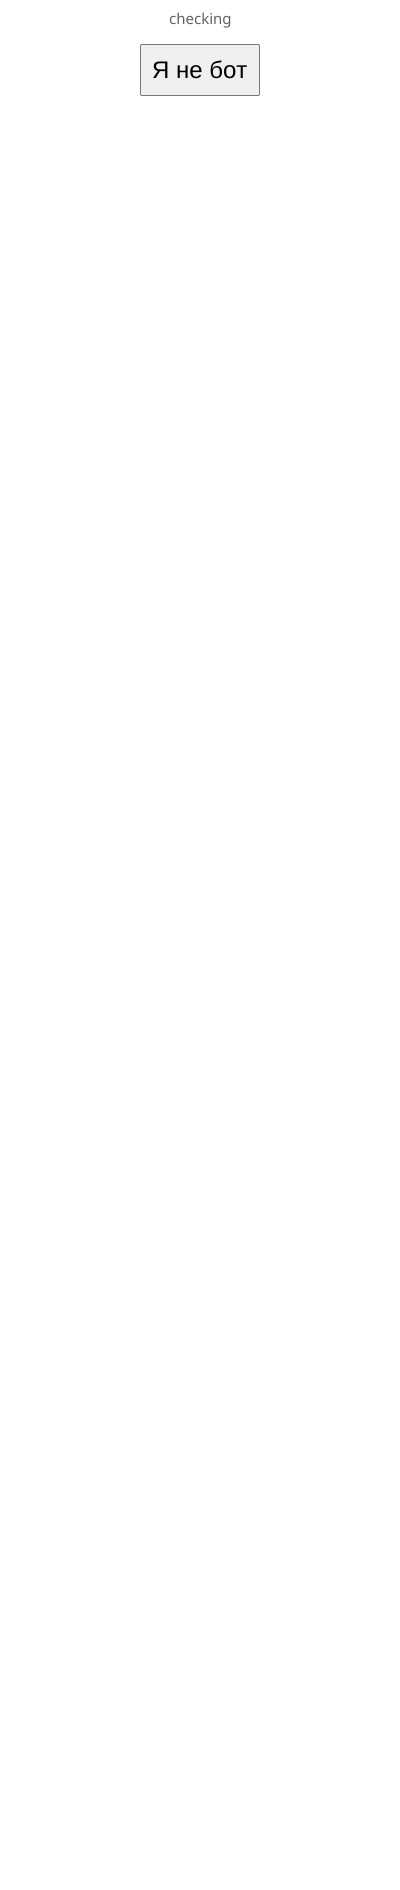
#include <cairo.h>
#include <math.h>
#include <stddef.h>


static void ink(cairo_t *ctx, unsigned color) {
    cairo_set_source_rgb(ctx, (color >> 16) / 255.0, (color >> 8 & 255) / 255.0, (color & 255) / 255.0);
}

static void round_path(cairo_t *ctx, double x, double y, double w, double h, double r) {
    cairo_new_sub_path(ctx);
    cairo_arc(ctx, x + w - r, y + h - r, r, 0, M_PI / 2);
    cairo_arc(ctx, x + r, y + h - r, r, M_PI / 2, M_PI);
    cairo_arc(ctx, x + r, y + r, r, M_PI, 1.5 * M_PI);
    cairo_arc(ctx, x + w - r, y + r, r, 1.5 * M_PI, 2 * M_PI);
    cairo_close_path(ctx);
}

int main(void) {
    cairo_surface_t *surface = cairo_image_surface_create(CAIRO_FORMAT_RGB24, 400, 1890);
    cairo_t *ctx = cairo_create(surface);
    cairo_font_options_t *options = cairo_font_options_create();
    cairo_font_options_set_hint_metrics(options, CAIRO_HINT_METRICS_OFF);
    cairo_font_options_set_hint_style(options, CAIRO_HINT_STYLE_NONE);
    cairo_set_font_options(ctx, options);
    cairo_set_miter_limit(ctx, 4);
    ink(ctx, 0xFFFFFF);
    cairo_paint(ctx);
    cairo_select_font_face(ctx, "Noto Sans", CAIRO_FONT_SLANT_NORMAL, CAIRO_FONT_WEIGHT_NORMAL);
    cairo_set_font_size(ctx, 15);
    ink(ctx, 0x5F6368);
    cairo_move_to(ctx, 169, 24);
    cairo_show_text(ctx, "checking");
    ink(ctx, 0xEFEFEF);
    round_path(ctx, 140.5, 44.5, 119, 51, 1.5);
    cairo_fill_preserve(ctx);
    ink(ctx, 0x767676);
    cairo_set_line_width(ctx, 1);
    cairo_stroke(ctx);
    cairo_select_font_face(ctx, "Liberation Sans", CAIRO_FONT_SLANT_NORMAL, CAIRO_FONT_WEIGHT_NORMAL);
    cairo_set_font_size(ctx, 24);
    ink(ctx, 0x000000);
    cairo_move_to(ctx, 152, 78);
    cairo_show_text(ctx, "Я не бот");
    cairo_surface_write_to_png(surface, "image.png");
    cairo_font_options_destroy(options);
    cairo_destroy(ctx);
    cairo_surface_destroy(surface);
    return 0;
}
